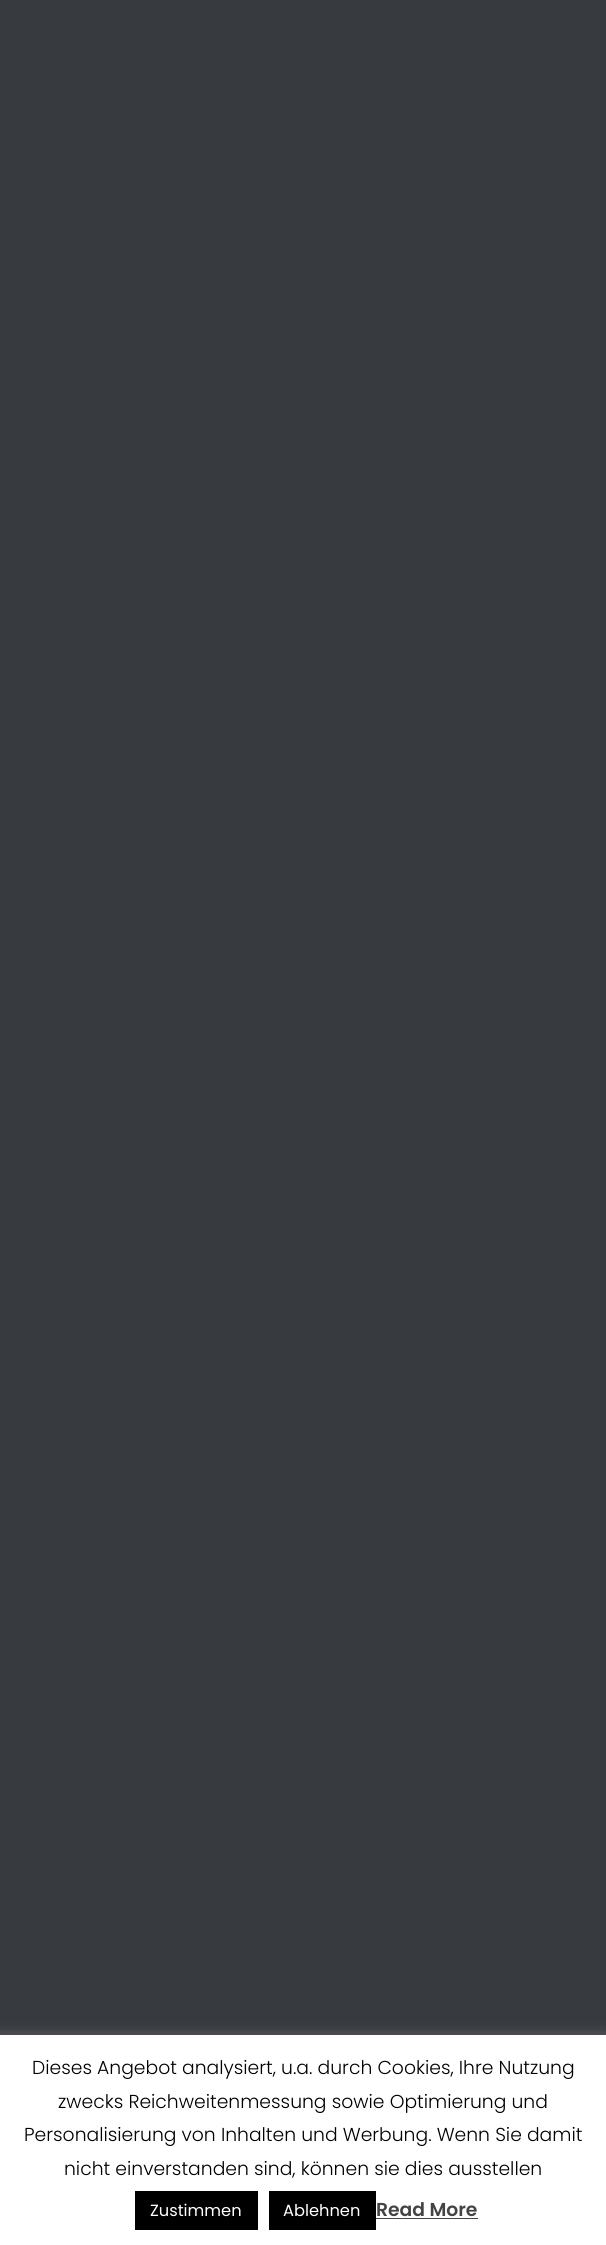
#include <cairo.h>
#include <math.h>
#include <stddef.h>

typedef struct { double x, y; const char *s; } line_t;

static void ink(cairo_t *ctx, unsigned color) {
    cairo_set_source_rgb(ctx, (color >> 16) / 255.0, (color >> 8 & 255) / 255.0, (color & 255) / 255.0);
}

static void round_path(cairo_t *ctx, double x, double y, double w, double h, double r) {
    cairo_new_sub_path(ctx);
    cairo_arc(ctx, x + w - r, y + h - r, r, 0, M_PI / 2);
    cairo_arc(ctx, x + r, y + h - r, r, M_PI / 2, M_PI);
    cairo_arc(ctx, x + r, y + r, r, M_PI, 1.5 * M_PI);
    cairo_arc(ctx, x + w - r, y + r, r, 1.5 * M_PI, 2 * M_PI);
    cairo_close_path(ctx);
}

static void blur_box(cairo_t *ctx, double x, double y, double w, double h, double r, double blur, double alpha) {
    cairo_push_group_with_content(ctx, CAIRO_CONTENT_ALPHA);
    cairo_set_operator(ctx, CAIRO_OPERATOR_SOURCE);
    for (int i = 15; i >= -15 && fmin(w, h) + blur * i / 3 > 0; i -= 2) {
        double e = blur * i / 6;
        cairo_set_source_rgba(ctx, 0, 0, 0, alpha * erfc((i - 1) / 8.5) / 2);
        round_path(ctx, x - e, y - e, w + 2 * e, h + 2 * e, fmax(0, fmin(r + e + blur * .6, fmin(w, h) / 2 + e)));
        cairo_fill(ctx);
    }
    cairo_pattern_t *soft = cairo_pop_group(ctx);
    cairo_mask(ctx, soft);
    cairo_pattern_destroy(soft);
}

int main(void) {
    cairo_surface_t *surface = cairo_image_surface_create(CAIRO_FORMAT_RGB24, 606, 2245);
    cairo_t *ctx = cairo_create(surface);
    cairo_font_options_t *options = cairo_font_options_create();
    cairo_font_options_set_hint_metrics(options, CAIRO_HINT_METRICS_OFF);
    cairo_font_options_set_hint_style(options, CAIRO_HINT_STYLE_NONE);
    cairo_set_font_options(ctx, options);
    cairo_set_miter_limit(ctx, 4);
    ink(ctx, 0x373B40);
    cairo_paint(ctx);
    ink(ctx, 0xACABAB);
    blur_box(ctx, 0, 2034, 606, 210, 0, 6, 0.3);
    ink(ctx, 0xFFFFFF);
    cairo_rectangle(ctx, 0, 2035, 606, 210);
    cairo_fill(ctx);
    cairo_select_font_face(ctx, "Poppins Light", CAIRO_FONT_SLANT_NORMAL, CAIRO_FONT_WEIGHT_NORMAL);
    cairo_set_font_size(ctx, 18.75);
    ink(ctx, 0x000000);
    {
        static const line_t items[] = {
            {32, 2074, "Dieses Angebot analysiert, u.a. durch Cookies, Ihre Nutzung"},
            {58, 2108, "zwecks Reichweitenmessung sowie Optimierung und"},
            {24, 2141, "Personalisierung von Inhalten und Werbung. Wenn Sie damit"},
            {64, 2175, "nicht einverstanden sind, können sie dies ausstellen"},
        };
        for (size_t i = 0; i < sizeof items / sizeof *items; i++) {
            cairo_move_to(ctx, items[i].x, items[i].y);
            cairo_show_text(ctx, items[i].s);
        }
    }
    cairo_rectangle(ctx, 135, 2191, 123, 39);
    cairo_fill(ctx);
    cairo_select_font_face(ctx, "Poppins", CAIRO_FONT_SLANT_NORMAL, CAIRO_FONT_WEIGHT_NORMAL);
    cairo_set_font_size(ctx, 16.25);
    ink(ctx, 0xFFFFFF);
    cairo_move_to(ctx, 150, 2216);
    cairo_show_text(ctx, "Zustimmen");
    ink(ctx, 0x000000);
    cairo_rectangle(ctx, 269, 2191, 107, 39);
    cairo_fill(ctx);
    ink(ctx, 0xFFFFFF);
    cairo_move_to(ctx, 283, 2216);
    cairo_show_text(ctx, "Ablehnen");
    cairo_select_font_face(ctx, "Poppins SemiBold", CAIRO_FONT_SLANT_NORMAL, CAIRO_FONT_WEIGHT_NORMAL);
    cairo_set_font_size(ctx, 18.75);
    ink(ctx, 0x444444);
    cairo_move_to(ctx, 376, 2216);
    cairo_show_text(ctx, "Read More");
    cairo_rectangle(ctx, 376, 2218, 102, 1);
    cairo_fill(ctx);
    cairo_surface_write_to_png(surface, "image.png");
    cairo_font_options_destroy(options);
    cairo_destroy(ctx);
    cairo_surface_destroy(surface);
    return 0;
}
